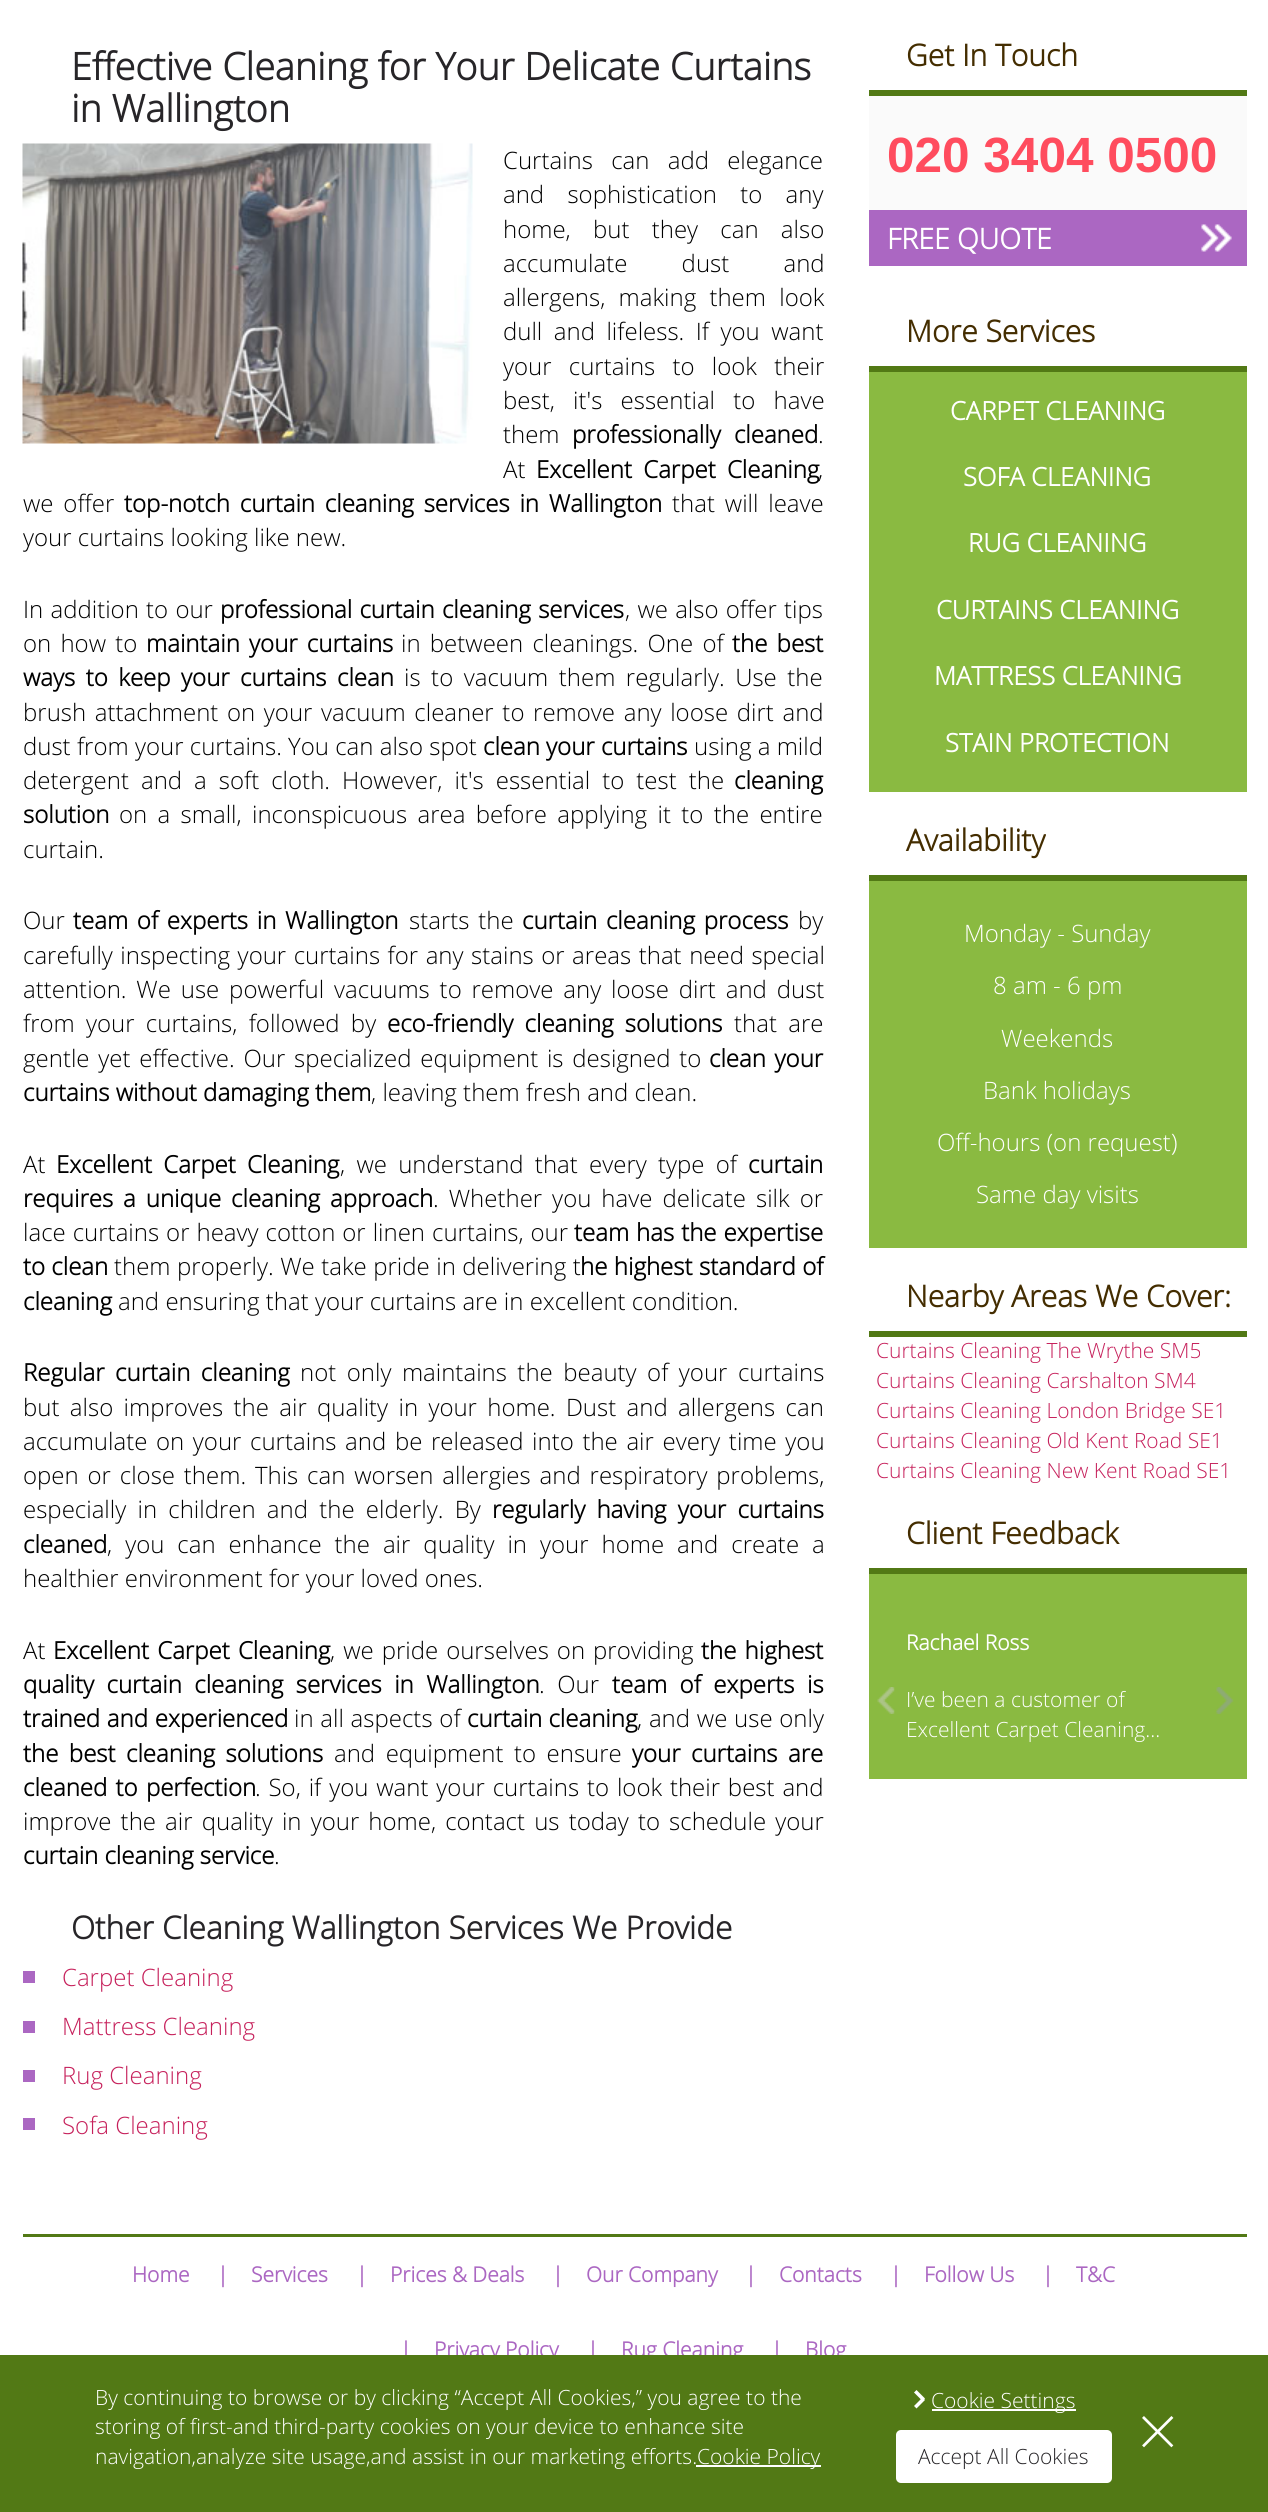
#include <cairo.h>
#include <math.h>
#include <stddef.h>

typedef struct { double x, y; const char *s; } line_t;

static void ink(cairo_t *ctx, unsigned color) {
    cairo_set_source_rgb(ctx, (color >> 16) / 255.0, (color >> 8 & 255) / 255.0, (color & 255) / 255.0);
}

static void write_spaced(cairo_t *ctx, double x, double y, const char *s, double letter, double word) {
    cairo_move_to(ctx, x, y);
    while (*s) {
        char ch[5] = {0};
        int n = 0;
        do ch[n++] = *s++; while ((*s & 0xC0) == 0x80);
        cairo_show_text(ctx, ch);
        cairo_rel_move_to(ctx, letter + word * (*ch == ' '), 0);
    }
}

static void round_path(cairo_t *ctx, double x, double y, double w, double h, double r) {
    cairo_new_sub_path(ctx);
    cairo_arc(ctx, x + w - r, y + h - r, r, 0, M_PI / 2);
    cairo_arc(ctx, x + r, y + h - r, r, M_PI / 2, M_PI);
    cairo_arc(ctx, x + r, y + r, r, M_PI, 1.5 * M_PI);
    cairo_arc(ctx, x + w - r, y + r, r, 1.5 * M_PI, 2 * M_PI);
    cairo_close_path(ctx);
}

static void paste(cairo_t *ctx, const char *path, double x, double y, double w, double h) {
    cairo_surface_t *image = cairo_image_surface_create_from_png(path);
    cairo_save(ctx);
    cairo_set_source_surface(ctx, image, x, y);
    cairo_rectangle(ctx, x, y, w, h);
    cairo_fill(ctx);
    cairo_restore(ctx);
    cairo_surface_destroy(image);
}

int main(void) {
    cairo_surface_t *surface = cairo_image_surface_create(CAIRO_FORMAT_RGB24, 1268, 2512);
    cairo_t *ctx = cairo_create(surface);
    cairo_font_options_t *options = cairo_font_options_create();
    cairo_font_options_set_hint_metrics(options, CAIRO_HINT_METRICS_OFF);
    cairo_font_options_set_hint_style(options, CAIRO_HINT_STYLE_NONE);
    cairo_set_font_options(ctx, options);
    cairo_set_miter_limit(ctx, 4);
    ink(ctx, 0xFFFFFF);
    cairo_paint(ctx);
    cairo_select_font_face(ctx, "Open Sans", CAIRO_FONT_SLANT_NORMAL, CAIRO_FONT_WEIGHT_BOLD);
    cairo_set_font_size(ctx, 37.75);
    ink(ctx, 0x272528);
    cairo_move_to(ctx, 71, 80);
    cairo_show_text(ctx, "Effective Cleaning for Your Delicate Curtains");
    cairo_move_to(ctx, 71, 122);
    cairo_show_text(ctx, "in Wallington");
    paste(ctx, "media/1.png", 22, 143, 451, 301);
    cairo_select_font_face(ctx, "Open Sans Light", CAIRO_FONT_SLANT_NORMAL, CAIRO_FONT_WEIGHT_NORMAL);
    cairo_set_font_size(ctx, 24);
    ink(ctx, 0x000000);
    write_spaced(ctx, 503, 169, "Curtains can add elegance", 0, 12);
    write_spaced(ctx, 503, 203, "and sophistication to any", 0, 17);
    write_spaced(ctx, 503, 238, "home, but they can also", 0, 16);
    write_spaced(ctx, 503, 272, "accumulate dust and", 0, 48);
    write_spaced(ctx, 503, 306, "allergens, making them look", 0, 7);
    write_spaced(ctx, 503, 340, "dull and lifeless. If you want", 0, 5.25);
    write_spaced(ctx, 503, 375, "your curtains to look their", 0, 11);
    write_spaced(ctx, 503, 409, "best, it's essential to have", 0, 12);
    cairo_move_to(ctx, 503, 443);
    cairo_show_text(ctx, "them");
    cairo_select_font_face(ctx, "Open Sans", CAIRO_FONT_SLANT_NORMAL, CAIRO_FONT_WEIGHT_BOLD);
    write_spaced(ctx, 572, 443, "professionally cleaned", 0, 7);
    cairo_select_font_face(ctx, "Open Sans Light", CAIRO_FONT_SLANT_NORMAL, CAIRO_FONT_WEIGHT_NORMAL);
    cairo_move_to(ctx, 818, 443);
    cairo_show_text(ctx, ".");
    cairo_move_to(ctx, 503, 478);
    cairo_show_text(ctx, "At");
    cairo_select_font_face(ctx, "Open Sans", CAIRO_FONT_SLANT_NORMAL, CAIRO_FONT_WEIGHT_BOLD);
    write_spaced(ctx, 536, 478, "Excellent Carpet Cleaning", 0, 5);
    cairo_select_font_face(ctx, "Open Sans Light", CAIRO_FONT_SLANT_NORMAL, CAIRO_FONT_WEIGHT_NORMAL);
    cairo_move_to(ctx, 818, 478);
    cairo_show_text(ctx, ",");
    write_spaced(ctx, 23, 512, "we offer", 0, 3.6);
    cairo_select_font_face(ctx, "Open Sans", CAIRO_FONT_SLANT_NORMAL, CAIRO_FONT_WEIGHT_BOLD);
    write_spaced(ctx, 124, 512, "top-notch curtain cleaning services in Wallington", 0, 3.6);
    cairo_select_font_face(ctx, "Open Sans Light", CAIRO_FONT_SLANT_NORMAL, CAIRO_FONT_WEIGHT_NORMAL);
    write_spaced(ctx, 672, 512, "that will leave", 0, 3.6);
    cairo_move_to(ctx, 23, 546);
    cairo_show_text(ctx, "your curtains looking like new.");
    write_spaced(ctx, 23, 618, "In addition to our", 0, 1);
    cairo_select_font_face(ctx, "Open Sans", CAIRO_FONT_SLANT_NORMAL, CAIRO_FONT_WEIGHT_BOLD);
    write_spaced(ctx, 220, 618, "professional curtain cleaning services", 0, 1);
    cairo_select_font_face(ctx, "Open Sans Light", CAIRO_FONT_SLANT_NORMAL, CAIRO_FONT_WEIGHT_NORMAL);
    write_spaced(ctx, 625, 618, ", we also offer tips", 0, 1);
    write_spaced(ctx, 23, 652, "on how to", 0, 3);
    cairo_select_font_face(ctx, "Open Sans", CAIRO_FONT_SLANT_NORMAL, CAIRO_FONT_WEIGHT_BOLD);
    write_spaced(ctx, 146, 652, "maintain your curtains", 0, 3);
    cairo_select_font_face(ctx, "Open Sans Light", CAIRO_FONT_SLANT_NORMAL, CAIRO_FONT_WEIGHT_NORMAL);
    write_spaced(ctx, 401, 652, "in between cleanings. One of", 0, 3);
    cairo_select_font_face(ctx, "Open Sans", CAIRO_FONT_SLANT_NORMAL, CAIRO_FONT_WEIGHT_BOLD);
    write_spaced(ctx, 732, 652, "the best", 0, 3);
    write_spaced(ctx, 23, 686, "ways to keep your curtains clean", 0, 4.25);
    cairo_select_font_face(ctx, "Open Sans Light", CAIRO_FONT_SLANT_NORMAL, CAIRO_FONT_WEIGHT_NORMAL);
    write_spaced(ctx, 404, 686, "is to vacuum them regularly. Use the", 0, 4.25);
    write_spaced(ctx, 23, 721, "brush attachment on your vacuum cleaner to remove any loose dirt and", 0, 2.4);
    cairo_move_to(ctx, 23, 755);
    cairo_show_text(ctx, "dust from your curtains. You can also spot");
    cairo_select_font_face(ctx, "Open Sans", CAIRO_FONT_SLANT_NORMAL, CAIRO_FONT_WEIGHT_BOLD);
    cairo_move_to(ctx, 483, 755);
    cairo_show_text(ctx, "clean your curtains");
    cairo_select_font_face(ctx, "Open Sans Light", CAIRO_FONT_SLANT_NORMAL, CAIRO_FONT_WEIGHT_NORMAL);
    cairo_move_to(ctx, 694, 755);
    cairo_show_text(ctx, "using a mild");
    write_spaced(ctx, 23, 789, "detergent and a soft cloth. However, it's essential to test the", 0, 5.75);
    cairo_select_font_face(ctx, "Open Sans", CAIRO_FONT_SLANT_NORMAL, CAIRO_FONT_WEIGHT_BOLD);
    cairo_move_to(ctx, 734, 789);
    cairo_show_text(ctx, "cleaning");
    cairo_move_to(ctx, 23, 823);
    cairo_show_text(ctx, "solution");
    cairo_select_font_face(ctx, "Open Sans Light", CAIRO_FONT_SLANT_NORMAL, CAIRO_FONT_WEIGHT_NORMAL);
    write_spaced(ctx, 119, 823, "on a small, inconspicuous area before applying it to the entire", 0, 4.1);
    cairo_move_to(ctx, 23, 858);
    cairo_show_text(ctx, "curtain.");
    cairo_move_to(ctx, 23, 929);
    cairo_show_text(ctx, "Our");
    cairo_select_font_face(ctx, "Open Sans", CAIRO_FONT_SLANT_NORMAL, CAIRO_FONT_WEIGHT_BOLD);
    write_spaced(ctx, 73, 929, "team of experts in Wallington", 0, 2.5);
    cairo_select_font_face(ctx, "Open Sans Light", CAIRO_FONT_SLANT_NORMAL, CAIRO_FONT_WEIGHT_NORMAL);
    write_spaced(ctx, 409, 929, "starts the", 0, 2.5);
    cairo_select_font_face(ctx, "Open Sans", CAIRO_FONT_SLANT_NORMAL, CAIRO_FONT_WEIGHT_BOLD);
    write_spaced(ctx, 522, 929, "curtain cleaning process", 0, 2.5);
    cairo_select_font_face(ctx, "Open Sans Light", CAIRO_FONT_SLANT_NORMAL, CAIRO_FONT_WEIGHT_NORMAL);
    cairo_move_to(ctx, 798, 929);
    cairo_show_text(ctx, "by");
    write_spaced(ctx, 23, 964, "carefully inspecting your curtains for any stains or areas that need special", 0, 1.25);
    write_spaced(ctx, 23, 998, "attention. We use powerful vacuums to remove any loose dirt and dust", 0, 3.6);
    write_spaced(ctx, 23, 1032, "from your curtains, followed by", 0, 5);
    cairo_select_font_face(ctx, "Open Sans", CAIRO_FONT_SLANT_NORMAL, CAIRO_FONT_WEIGHT_BOLD);
    write_spaced(ctx, 387, 1032, "eco-friendly cleaning solutions", 0, 5);
    cairo_select_font_face(ctx, "Open Sans Light", CAIRO_FONT_SLANT_NORMAL, CAIRO_FONT_WEIGHT_NORMAL);
    write_spaced(ctx, 734, 1032, "that are", 0, 5);
    write_spaced(ctx, 23, 1067, "gentle yet effective. Our specialized equipment is designed to", 0, 2.5);
    cairo_select_font_face(ctx, "Open Sans", CAIRO_FONT_SLANT_NORMAL, CAIRO_FONT_WEIGHT_BOLD);
    write_spaced(ctx, 709, 1067, "clean your", 0, 2.5);
    cairo_move_to(ctx, 23, 1101);
    cairo_show_text(ctx, "curtains without damaging them");
    cairo_select_font_face(ctx, "Open Sans Light", CAIRO_FONT_SLANT_NORMAL, CAIRO_FONT_WEIGHT_NORMAL);
    cairo_move_to(ctx, 371, 1101);
    cairo_show_text(ctx, ", leaving them fresh and clean.");
    cairo_move_to(ctx, 23, 1173);
    cairo_show_text(ctx, "At");
    cairo_select_font_face(ctx, "Open Sans", CAIRO_FONT_SLANT_NORMAL, CAIRO_FONT_WEIGHT_BOLD);
    write_spaced(ctx, 56, 1173, "Excellent Carpet Cleaning", 0, 5);
    cairo_select_font_face(ctx, "Open Sans Light", CAIRO_FONT_SLANT_NORMAL, CAIRO_FONT_WEIGHT_NORMAL);
    write_spaced(ctx, 340, 1173, ", we understand that every type of", 0, 5);
    cairo_select_font_face(ctx, "Open Sans", CAIRO_FONT_SLANT_NORMAL, CAIRO_FONT_WEIGHT_BOLD);
    cairo_move_to(ctx, 748, 1173);
    cairo_show_text(ctx, "curtain");
    write_spaced(ctx, 23, 1207, "requires a unique cleaning approach", 0, 3.75);
    cairo_select_font_face(ctx, "Open Sans Light", CAIRO_FONT_SLANT_NORMAL, CAIRO_FONT_WEIGHT_NORMAL);
    write_spaced(ctx, 433, 1207, ". Whether you have delicate silk or", 0, 3.75);
    write_spaced(ctx, 23, 1241, "lace curtains or heavy cotton or linen curtains, our", 0, 0.75);
    cairo_select_font_face(ctx, "Open Sans", CAIRO_FONT_SLANT_NORMAL, CAIRO_FONT_WEIGHT_BOLD);
    write_spaced(ctx, 574, 1241, "team has the expertise", 0, 0.75);
    cairo_move_to(ctx, 23, 1275);
    cairo_show_text(ctx, "to clean");
    cairo_select_font_face(ctx, "Open Sans Light", CAIRO_FONT_SLANT_NORMAL, CAIRO_FONT_WEIGHT_NORMAL);
    write_spaced(ctx, 114, 1275, "them properly. We take pride in delivering t", 0, 0.25);
    cairo_select_font_face(ctx, "Open Sans", CAIRO_FONT_SLANT_NORMAL, CAIRO_FONT_WEIGHT_BOLD);
    write_spaced(ctx, 580, 1275, "he highest standard of", 0, 0.25);
    cairo_move_to(ctx, 23, 1310);
    cairo_show_text(ctx, "cleaning");
    cairo_select_font_face(ctx, "Open Sans Light", CAIRO_FONT_SLANT_NORMAL, CAIRO_FONT_WEIGHT_NORMAL);
    cairo_move_to(ctx, 118, 1310);
    cairo_show_text(ctx, "and ensuring that your curtains are in excellent condition.");
    cairo_select_font_face(ctx, "Open Sans", CAIRO_FONT_SLANT_NORMAL, CAIRO_FONT_WEIGHT_BOLD);
    write_spaced(ctx, 23, 1381, "Regular curtain cleaning", 0, 4.25);
    cairo_select_font_face(ctx, "Open Sans Light", CAIRO_FONT_SLANT_NORMAL, CAIRO_FONT_WEIGHT_NORMAL);
    write_spaced(ctx, 300, 1381, "not only maintains the beauty of your curtains", 0, 4.25);
    write_spaced(ctx, 23, 1416, "but also improves the air quality in your home. Dust and allergens can", 0, 4.1);
    write_spaced(ctx, 23, 1450, "accumulate on your curtains and be released into the air every time you", 0, 2.4);
    write_spaced(ctx, 23, 1484, "open or close them. This can worsen allergies and respiratory problems,", 0, 2.6);
    write_spaced(ctx, 23, 1518, "especially in children and the elderly. By", 0, 5);
    cairo_select_font_face(ctx, "Open Sans", CAIRO_FONT_SLANT_NORMAL, CAIRO_FONT_WEIGHT_BOLD);
    write_spaced(ctx, 492, 1518, "regularly having your curtains", 0, 5);
    cairo_move_to(ctx, 23, 1553);
    cairo_show_text(ctx, "cleaned");
    cairo_select_font_face(ctx, "Open Sans Light", CAIRO_FONT_SLANT_NORMAL, CAIRO_FONT_WEIGHT_NORMAL);
    write_spaced(ctx, 107, 1553, ", you can enhance the air quality in your home and create a", 0, 6.75);
    cairo_move_to(ctx, 23, 1587);
    cairo_show_text(ctx, "healthier environment for your loved ones.");
    cairo_move_to(ctx, 23, 1659);
    cairo_show_text(ctx, "At");
    cairo_select_font_face(ctx, "Open Sans", CAIRO_FONT_SLANT_NORMAL, CAIRO_FONT_WEIGHT_BOLD);
    write_spaced(ctx, 53, 1659, "Excellent Carpet Cleaning", 0, 2);
    cairo_select_font_face(ctx, "Open Sans Light", CAIRO_FONT_SLANT_NORMAL, CAIRO_FONT_WEIGHT_NORMAL);
    write_spaced(ctx, 330, 1659, ", we pride ourselves on providing", 0, 1.75);
    cairo_select_font_face(ctx, "Open Sans", CAIRO_FONT_SLANT_NORMAL, CAIRO_FONT_WEIGHT_BOLD);
    write_spaced(ctx, 701, 1659, "the highest", 0, 2);
    write_spaced(ctx, 23, 1693, "quality curtain cleaning services in Wallington", 0, 6.25);
    cairo_select_font_face(ctx, "Open Sans Light", CAIRO_FONT_SLANT_NORMAL, CAIRO_FONT_WEIGHT_NORMAL);
    write_spaced(ctx, 539, 1693, ". Our", 0, 6.25);
    cairo_select_font_face(ctx, "Open Sans", CAIRO_FONT_SLANT_NORMAL, CAIRO_FONT_WEIGHT_BOLD);
    write_spaced(ctx, 612, 1693, "team of experts is", 0, 6.25);
    write_spaced(ctx, 23, 1727, "trained and experienced", 0, 0.5);
    cairo_select_font_face(ctx, "Open Sans Light", CAIRO_FONT_SLANT_NORMAL, CAIRO_FONT_WEIGHT_NORMAL);
    write_spaced(ctx, 294, 1727, "in all aspects of", 0, 0.5);
    cairo_select_font_face(ctx, "Open Sans", CAIRO_FONT_SLANT_NORMAL, CAIRO_FONT_WEIGHT_BOLD);
    cairo_move_to(ctx, 467, 1727);
    cairo_show_text(ctx, "curtain cleaning");
    cairo_select_font_face(ctx, "Open Sans Light", CAIRO_FONT_SLANT_NORMAL, CAIRO_FONT_WEIGHT_NORMAL);
    write_spaced(ctx, 637, 1727, ", and we use only", 0, 0.5);
    cairo_select_font_face(ctx, "Open Sans", CAIRO_FONT_SLANT_NORMAL, CAIRO_FONT_WEIGHT_BOLD);
    write_spaced(ctx, 23, 1762, "the best cleaning solutions", 0, 4.25);
    cairo_select_font_face(ctx, "Open Sans Light", CAIRO_FONT_SLANT_NORMAL, CAIRO_FONT_WEIGHT_NORMAL);
    write_spaced(ctx, 334, 1762, "and equipment to ensure", 0, 4.25);
    cairo_select_font_face(ctx, "Open Sans", CAIRO_FONT_SLANT_NORMAL, CAIRO_FONT_WEIGHT_BOLD);
    write_spaced(ctx, 632, 1762, "your curtains are", 0, 4.25);
    write_spaced(ctx, 23, 1796, "cleaned to perfection", 0, 2);
    cairo_select_font_face(ctx, "Open Sans Light", CAIRO_FONT_SLANT_NORMAL, CAIRO_FONT_WEIGHT_NORMAL);
    write_spaced(ctx, 255, 1796, ". So, if you want your curtains to look their best and", 0, 1.6);
    write_spaced(ctx, 23, 1830, "improve the air quality in your home, contact us today to schedule your", 0, 2.9);
    cairo_select_font_face(ctx, "Open Sans", CAIRO_FONT_SLANT_NORMAL, CAIRO_FONT_WEIGHT_BOLD);
    cairo_move_to(ctx, 23, 1864);
    cairo_show_text(ctx, "curtain cleaning service");
    cairo_select_font_face(ctx, "Open Sans Light", CAIRO_FONT_SLANT_NORMAL, CAIRO_FONT_WEIGHT_NORMAL);
    cairo_move_to(ctx, 274, 1864);
    cairo_show_text(ctx, ".");
    cairo_select_font_face(ctx, "Open Sans", CAIRO_FONT_SLANT_NORMAL, CAIRO_FONT_WEIGHT_BOLD);
    cairo_set_font_size(ctx, 31.5);
    ink(ctx, 0x272528);
    cairo_move_to(ctx, 71, 1939);
    cairo_show_text(ctx, "Other Cleaning Wallington Services We Provide");
    ink(ctx, 0xAB67C2);
    cairo_rectangle(ctx, 23, 1971, 12, 12);
    cairo_fill(ctx);
    cairo_select_font_face(ctx, "Open Sans Light", CAIRO_FONT_SLANT_NORMAL, CAIRO_FONT_WEIGHT_NORMAL);
    cairo_set_font_size(ctx, 24);
    ink(ctx, 0xC6205B);
    cairo_move_to(ctx, 62, 1986);
    cairo_show_text(ctx, "Carpet Cleaning");
    ink(ctx, 0xAB67C2);
    cairo_rectangle(ctx, 23, 2021, 12, 12);
    cairo_fill(ctx);
    ink(ctx, 0xC6205B);
    cairo_move_to(ctx, 62, 2035);
    cairo_show_text(ctx, "Mattress Cleaning");
    ink(ctx, 0xAB67C2);
    cairo_rectangle(ctx, 23, 2070, 12, 12);
    cairo_fill(ctx);
    ink(ctx, 0xC6205B);
    cairo_move_to(ctx, 62, 2084);
    cairo_show_text(ctx, "Rug Cleaning");
    ink(ctx, 0xAB67C2);
    cairo_rectangle(ctx, 23, 2118, 12, 12);
    cairo_fill(ctx);
    ink(ctx, 0xC6205B);
    cairo_move_to(ctx, 62, 2134);
    cairo_show_text(ctx, "Sofa Cleaning");
    ink(ctx, 0x527915);
    cairo_rectangle(ctx, 869, 90, 378, 6);
    cairo_fill(ctx);
    cairo_select_font_face(ctx, "Open Sans", CAIRO_FONT_SLANT_NORMAL, CAIRO_FONT_WEIGHT_BOLD);
    cairo_set_font_size(ctx, 30);
    ink(ctx, 0x442D00);
    cairo_move_to(ctx, 906, 66);
    cairo_show_text(ctx, "Get In Touch");
    ink(ctx, 0xFAFAFA);
    cairo_rectangle(ctx, 869, 96, 378, 114);
    cairo_fill(ctx);
    cairo_select_font_face(ctx, "Liberation Sans", CAIRO_FONT_SLANT_NORMAL, CAIRO_FONT_WEIGHT_BOLD);
    cairo_set_font_size(ctx, 49.5);
    ink(ctx, 0xFF4C5E);
    cairo_move_to(ctx, 887, 172);
    cairo_show_text(ctx, "020 3404 0500");
    ink(ctx, 0xAB67C2);
    cairo_rectangle(ctx, 869, 210, 378, 56);
    cairo_fill(ctx);
    paste(ctx, "media/2.png", 1201, 224, 31, 28);
    cairo_select_font_face(ctx, "Open Sans", CAIRO_FONT_SLANT_NORMAL, CAIRO_FONT_WEIGHT_BOLD);
    cairo_set_font_size(ctx, 28.5);
    ink(ctx, 0xFFFFFF);
    cairo_move_to(ctx, 887, 249);
    cairo_show_text(ctx, "FREE QUOTE");
    ink(ctx, 0x527915);
    cairo_rectangle(ctx, 869, 366, 378, 6);
    cairo_fill(ctx);
    cairo_set_font_size(ctx, 30);
    ink(ctx, 0x442D00);
    cairo_move_to(ctx, 906, 342);
    cairo_show_text(ctx, "More Services");
    ink(ctx, 0x8ABA41);
    cairo_rectangle(ctx, 869, 372, 378, 420);
    cairo_fill(ctx);
    cairo_set_font_size(ctx, 25.5);
    ink(ctx, 0xFFFFFF);
    {
        static const line_t items[] = {
            {950, 420, "CARPET CLEANING"},
            {963, 486, "SOFA CLEANING"},
            {968, 552, "RUG CLEANING"},
            {936, 619, "CURTAINS CLEANING"},
            {934, 685, "MATTRESS CLEANING"},
            {945, 752, "STAIN PROTECTION"},
        };
        for (size_t i = 0; i < sizeof items / sizeof *items; i++) {
            cairo_move_to(ctx, items[i].x, items[i].y);
            cairo_show_text(ctx, items[i].s);
        }
    }
    ink(ctx, 0x527915);
    cairo_rectangle(ctx, 869, 875, 378, 6);
    cairo_fill(ctx);
    cairo_set_font_size(ctx, 30);
    ink(ctx, 0x442D00);
    cairo_move_to(ctx, 906, 851);
    cairo_show_text(ctx, "Availability");
    ink(ctx, 0x8ABA41);
    cairo_rectangle(ctx, 869, 881, 378, 367);
    cairo_fill(ctx);
    cairo_select_font_face(ctx, "Open Sans Light", CAIRO_FONT_SLANT_NORMAL, CAIRO_FONT_WEIGHT_NORMAL);
    cairo_set_font_size(ctx, 24);
    ink(ctx, 0xFFFFFF);
    {
        static const line_t items[] = {
            {964, 942, "Monday - Sunday"},
            {993, 994, "8 am - 6 pm"},
            {1001, 1047, "Weekends"},
            {983, 1099, "Bank holidays"},
            {937, 1151, "Off-hours (on request)"},
            {976, 1203, "Same day visits"},
        };
        for (size_t i = 0; i < sizeof items / sizeof *items; i++) {
            cairo_move_to(ctx, items[i].x, items[i].y);
            cairo_show_text(ctx, items[i].s);
        }
    }
    ink(ctx, 0x527915);
    cairo_rectangle(ctx, 869, 1331, 378, 6);
    cairo_fill(ctx);
    cairo_select_font_face(ctx, "Open Sans", CAIRO_FONT_SLANT_NORMAL, CAIRO_FONT_WEIGHT_BOLD);
    cairo_set_font_size(ctx, 30);
    ink(ctx, 0x442D00);
    cairo_move_to(ctx, 906, 1307);
    cairo_show_text(ctx, "Nearby Areas We Cover:");
    cairo_select_font_face(ctx, "Open Sans Light", CAIRO_FONT_SLANT_NORMAL, CAIRO_FONT_WEIGHT_NORMAL);
    cairo_set_font_size(ctx, 21);
    ink(ctx, 0xC6205B);
    {
        static const line_t items[] = {
            {876, 1358, "Curtains Cleaning The Wrythe SM5"},
            {876, 1388, "Curtains Cleaning Carshalton SM4"},
            {876, 1418, "Curtains Cleaning London Bridge SE1"},
            {876, 1448, "Curtains Cleaning Old Kent Road SE1"},
            {876, 1478, "Curtains Cleaning New Kent Road SE1"},
        };
        for (size_t i = 0; i < sizeof items / sizeof *items; i++) {
            cairo_move_to(ctx, items[i].x, items[i].y);
            cairo_show_text(ctx, items[i].s);
        }
    }
    ink(ctx, 0x527915);
    cairo_rectangle(ctx, 869, 1568, 378, 6);
    cairo_fill(ctx);
    cairo_select_font_face(ctx, "Open Sans", CAIRO_FONT_SLANT_NORMAL, CAIRO_FONT_WEIGHT_BOLD);
    cairo_set_font_size(ctx, 30);
    ink(ctx, 0x442D00);
    cairo_move_to(ctx, 906, 1544);
    cairo_show_text(ctx, "Client Feedback");
    ink(ctx, 0x8ABA41);
    cairo_rectangle(ctx, 869, 1574, 378, 205);
    cairo_fill(ctx);
    paste(ctx, "media/3.png", 877, 1687, 18, 27);
    cairo_set_font_size(ctx, 21);
    ink(ctx, 0xFFFFFF);
    cairo_move_to(ctx, 906, 1650);
    cairo_show_text(ctx, "Rachael Ross");
    cairo_select_font_face(ctx, "Open Sans Light", CAIRO_FONT_SLANT_NORMAL, CAIRO_FONT_WEIGHT_NORMAL);
    cairo_move_to(ctx, 906, 1707);
    cairo_show_text(ctx, "I’ve been a customer of");
    cairo_move_to(ctx, 906, 1737);
    cairo_show_text(ctx, "Excellent Carpet Cleaning...");
    paste(ctx, "media/4.png", 1216, 1687, 18, 27);
    ink(ctx, 0x527915);
    cairo_rectangle(ctx, 23, 2234, 1224, 3);
    cairo_fill(ctx);
    cairo_select_font_face(ctx, "Open Sans", CAIRO_FONT_SLANT_NORMAL, CAIRO_FONT_WEIGHT_BOLD);
    ink(ctx, 0xAB67C2);
    {
        static const line_t items[] = {
            {132, 2282, "Home"},
            {217, 2282, "|"},
            {251, 2282, "Services"},
            {356, 2282, "|"},
            {390, 2282, "Prices & Deals"},
            {552, 2282, "|"},
            {586, 2282, "Our Company"},
            {745, 2282, "|"},
            {779, 2282, "Contacts"},
            {890, 2282, "|"},
            {924, 2282, "Follow Us"},
            {1042, 2282, "|"},
            {1076, 2282, "T&C"},
            {400, 2357, "|"},
            {434, 2357, "Privacy Policy"},
            {587, 2357, "|"},
            {621, 2357, "Rug Cleaning"},
            {771, 2357, "|"},
            {805, 2357, "Blog"},
        };
        for (size_t i = 0; i < sizeof items / sizeof *items; i++) {
            cairo_move_to(ctx, items[i].x, items[i].y);
            cairo_show_text(ctx, items[i].s);
        }
    }
    ink(ctx, 0x527915);
    cairo_rectangle(ctx, 0, 2355, 1268, 157);
    cairo_fill(ctx);
    cairo_select_font_face(ctx, "Open Sans Light", CAIRO_FONT_SLANT_NORMAL, CAIRO_FONT_WEIGHT_NORMAL);
    ink(ctx, 0xFFFFFF);
    {
        static const line_t items[] = {
            {95, 2405, "By continuing to browse or by clicking “Accept All Cookies,” you agree to the"},
            {95, 2434, "storing of first-and third-party cookies on your device to enhance site"},
            {95, 2464, "navigation,analyze site usage,and assist in our marketing efforts."},
        };
        for (size_t i = 0; i < sizeof items / sizeof *items; i++) {
            cairo_move_to(ctx, items[i].x, items[i].y);
            cairo_show_text(ctx, items[i].s);
        }
    }
    cairo_rectangle(ctx, 696, 2465, 125, 2);
    cairo_fill(ctx);
    cairo_move_to(ctx, 697, 2464);
    cairo_show_text(ctx, "Cookie Policy");
    cairo_new_path(ctx);
    cairo_move_to(ctx, 914, 2392.5);
    cairo_line_to(ctx, 916.5, 2390);
    cairo_line_to(ctx, 925, 2398.5);
    cairo_line_to(ctx, 922.5, 2401);
    cairo_close_path(ctx);
    cairo_fill(ctx);
    cairo_rectangle(ctx, 932, 2409, 144, 2);
    cairo_fill(ctx);
    cairo_move_to(ctx, 931, 2408);
    cairo_show_text(ctx, "Cookie Settings");
    cairo_new_path(ctx);
    cairo_move_to(ctx, 922.5, 2397.5);
    cairo_line_to(ctx, 925, 2400);
    cairo_line_to(ctx, 916.5, 2408.5);
    cairo_line_to(ctx, 914, 2406);
    cairo_close_path(ctx);
    cairo_fill(ctx);
    cairo_set_font_size(ctx, 69);
    cairo_move_to(ctx, 1138, 2456);
    cairo_show_text(ctx, "×");
    round_path(ctx, 896, 2430, 216, 53, 5);
    cairo_fill(ctx);
    cairo_set_font_size(ctx, 21);
    ink(ctx, 0x272528);
    cairo_move_to(ctx, 918, 2464);
    cairo_show_text(ctx, "Accept All Cookies");
    cairo_surface_write_to_png(surface, "image.png");
    cairo_font_options_destroy(options);
    cairo_destroy(ctx);
    cairo_surface_destroy(surface);
    return 0;
}
